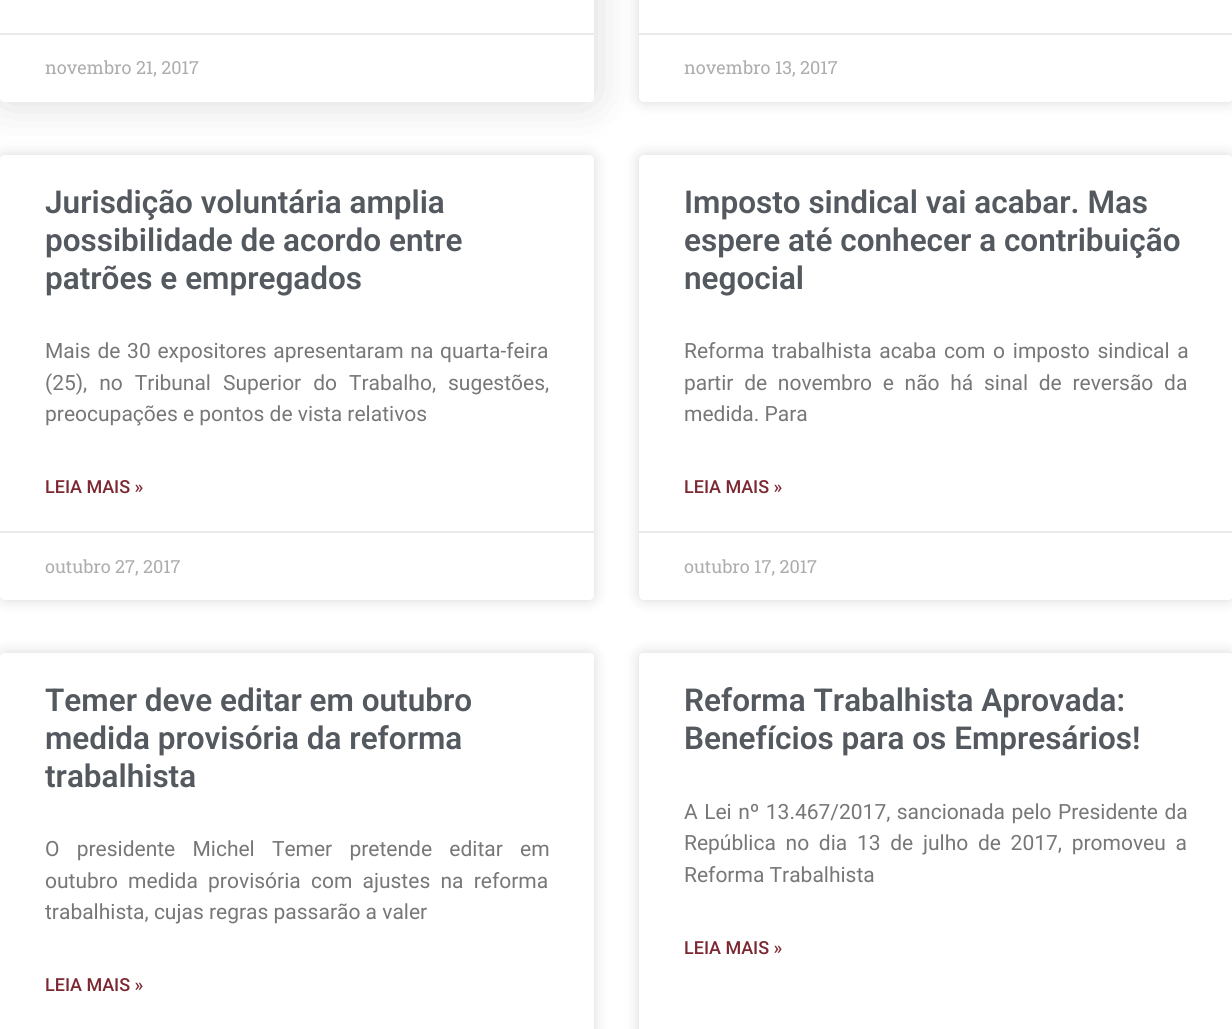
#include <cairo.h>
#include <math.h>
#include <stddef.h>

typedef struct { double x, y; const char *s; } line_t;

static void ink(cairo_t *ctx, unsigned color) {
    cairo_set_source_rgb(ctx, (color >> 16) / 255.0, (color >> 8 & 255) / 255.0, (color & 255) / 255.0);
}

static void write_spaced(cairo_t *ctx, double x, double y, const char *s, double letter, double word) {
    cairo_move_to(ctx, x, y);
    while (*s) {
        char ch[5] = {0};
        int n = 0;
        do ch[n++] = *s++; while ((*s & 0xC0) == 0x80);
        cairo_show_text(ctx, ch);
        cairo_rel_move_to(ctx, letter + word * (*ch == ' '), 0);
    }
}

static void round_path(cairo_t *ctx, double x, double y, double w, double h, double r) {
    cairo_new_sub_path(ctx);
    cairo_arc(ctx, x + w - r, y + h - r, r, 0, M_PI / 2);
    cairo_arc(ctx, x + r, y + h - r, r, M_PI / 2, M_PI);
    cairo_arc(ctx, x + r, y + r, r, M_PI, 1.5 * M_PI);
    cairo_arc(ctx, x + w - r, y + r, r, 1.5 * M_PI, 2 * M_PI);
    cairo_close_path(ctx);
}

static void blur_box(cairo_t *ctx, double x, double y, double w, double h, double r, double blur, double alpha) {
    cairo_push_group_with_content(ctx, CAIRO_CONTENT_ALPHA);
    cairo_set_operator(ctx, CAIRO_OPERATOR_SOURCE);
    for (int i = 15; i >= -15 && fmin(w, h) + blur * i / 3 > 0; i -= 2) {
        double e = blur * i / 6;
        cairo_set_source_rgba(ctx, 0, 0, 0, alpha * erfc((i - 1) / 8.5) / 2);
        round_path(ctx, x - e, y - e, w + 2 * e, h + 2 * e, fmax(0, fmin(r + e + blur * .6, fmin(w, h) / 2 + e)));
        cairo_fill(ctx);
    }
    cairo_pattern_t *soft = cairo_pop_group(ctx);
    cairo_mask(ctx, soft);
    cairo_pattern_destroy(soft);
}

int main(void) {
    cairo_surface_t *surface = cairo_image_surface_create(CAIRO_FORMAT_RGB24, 1232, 1029);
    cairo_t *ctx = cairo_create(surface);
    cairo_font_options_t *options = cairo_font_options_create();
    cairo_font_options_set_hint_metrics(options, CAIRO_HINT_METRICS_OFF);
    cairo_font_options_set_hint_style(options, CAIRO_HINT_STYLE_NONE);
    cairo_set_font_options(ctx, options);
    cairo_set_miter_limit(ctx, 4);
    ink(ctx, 0xFFFFFF);
    cairo_paint(ctx);
    cairo_save(ctx);
    cairo_set_fill_rule(ctx, CAIRO_FILL_RULE_EVEN_ODD);
    cairo_new_path(ctx);
    cairo_move_to(ctx, 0, 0);
    cairo_line_to(ctx, 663, 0);
    cairo_line_to(ctx, 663, 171);
    cairo_line_to(ctx, 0, 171);
    cairo_close_path(ctx);
    cairo_move_to(ctx, 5, -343);
    cairo_line_to(ctx, 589, -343);
    cairo_curve_to(ctx, 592, -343, 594, -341, 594, -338);
    cairo_line_to(ctx, 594, 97);
    cairo_curve_to(ctx, 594, 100, 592, 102, 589, 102);
    cairo_line_to(ctx, 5, 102);
    cairo_curve_to(ctx, 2, 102, 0, 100, 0, 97);
    cairo_line_to(ctx, 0, -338);
    cairo_curve_to(ctx, 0, -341, 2, -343, 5, -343);
    cairo_close_path(ctx);
    cairo_clip(ctx);
    ink(ctx, 0x000000);
    blur_box(ctx, 0, -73, 594, 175, 5, 22.5, 0.15);
    cairo_restore(ctx);
    ink(ctx, 0xEAEAEA);
    cairo_rectangle(ctx, 0, 33, 594, 2);
    cairo_fill(ctx);
    cairo_select_font_face(ctx, "Roboto Slab", CAIRO_FONT_SLANT_NORMAL, CAIRO_FONT_WEIGHT_NORMAL);
    cairo_set_font_size(ctx, 18);
    ink(ctx, 0xADADAD);
    cairo_move_to(ctx, 45, 74);
    cairo_show_text(ctx, "novembro 21, 2017");
    ink(ctx, 0x000000);
    blur_box(ctx, 639, -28, 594, 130, 5, 7.5, 0.15);
    ink(ctx, 0xFFFFFF);
    round_path(ctx, 639, -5, 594, 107, 5);
    cairo_fill(ctx);
    ink(ctx, 0xEAEAEA);
    cairo_rectangle(ctx, 639, 33, 593, 2);
    cairo_fill(ctx);
    ink(ctx, 0xADADAD);
    cairo_move_to(ctx, 684, 74);
    cairo_show_text(ctx, "novembro 13, 2017");
    ink(ctx, 0x000000);
    blur_box(ctx, 0, 155, 594, 445, 5, 7.5, 0.15);
    ink(ctx, 0xFFFFFF);
    round_path(ctx, 0, 155, 594, 445, 5);
    cairo_fill(ctx);
    cairo_select_font_face(ctx, "Roboto SemiBold", CAIRO_FONT_SLANT_NORMAL, CAIRO_FONT_WEIGHT_NORMAL);
    cairo_set_font_size(ctx, 31.5);
    ink(ctx, 0x54595F);
    {
        static const line_t items[] = {
            {45, 213, "Jurisdição voluntária amplia"},
            {45, 251, "possibilidade de acordo entre"},
            {45, 289, "patrões e empregados"},
        };
        for (size_t i = 0; i < sizeof items / sizeof *items; i++) {
            cairo_move_to(ctx, items[i].x, items[i].y);
            cairo_show_text(ctx, items[i].s);
        }
    }
    cairo_select_font_face(ctx, "Roboto", CAIRO_FONT_SLANT_NORMAL, CAIRO_FONT_WEIGHT_NORMAL);
    cairo_set_font_size(ctx, 21);
    ink(ctx, 0x777777);
    write_spaced(ctx, 45, 358, "Mais de 30 expositores apresentaram na quarta-feira", 0, 1.5);
    write_spaced(ctx, 45, 390, "(25), no Tribunal Superior do Trabalho, sugestões,", 0, 6.75);
    cairo_move_to(ctx, 45, 421);
    cairo_show_text(ctx, "preocupações e pontos de vista relativos");
    cairo_select_font_face(ctx, "Roboto Medium", CAIRO_FONT_SLANT_NORMAL, CAIRO_FONT_WEIGHT_NORMAL);
    cairo_set_font_size(ctx, 18);
    ink(ctx, 0x7C2832);
    cairo_move_to(ctx, 45, 493);
    cairo_show_text(ctx, "LEIA MAIS »");
    ink(ctx, 0xEAEAEA);
    cairo_rectangle(ctx, 0, 531, 594, 2);
    cairo_fill(ctx);
    cairo_select_font_face(ctx, "Roboto Slab", CAIRO_FONT_SLANT_NORMAL, CAIRO_FONT_WEIGHT_NORMAL);
    ink(ctx, 0xADADAD);
    cairo_move_to(ctx, 45, 573);
    cairo_show_text(ctx, "outubro 27, 2017");
    ink(ctx, 0x000000);
    blur_box(ctx, 639, 155, 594, 445, 5, 7.5, 0.15);
    ink(ctx, 0xFFFFFF);
    round_path(ctx, 639, 155, 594, 445, 5);
    cairo_fill(ctx);
    cairo_select_font_face(ctx, "Roboto SemiBold", CAIRO_FONT_SLANT_NORMAL, CAIRO_FONT_WEIGHT_NORMAL);
    cairo_set_font_size(ctx, 31.5);
    ink(ctx, 0x54595F);
    {
        static const line_t items[] = {
            {684, 213, "Imposto sindical vai acabar. Mas"},
            {684, 251, "espere até conhecer a contribuição"},
            {684, 289, "negocial"},
        };
        for (size_t i = 0; i < sizeof items / sizeof *items; i++) {
            cairo_move_to(ctx, items[i].x, items[i].y);
            cairo_show_text(ctx, items[i].s);
        }
    }
    cairo_select_font_face(ctx, "Roboto", CAIRO_FONT_SLANT_NORMAL, CAIRO_FONT_WEIGHT_NORMAL);
    cairo_set_font_size(ctx, 21);
    ink(ctx, 0x777777);
    write_spaced(ctx, 684, 358, "Reforma trabalhista acaba com o imposto sindical a", 0, 2.5);
    write_spaced(ctx, 684, 390, "partir de novembro e não há sinal de reversão da", 0, 5.5);
    cairo_move_to(ctx, 684, 421);
    cairo_show_text(ctx, "medida. Para");
    cairo_select_font_face(ctx, "Roboto Medium", CAIRO_FONT_SLANT_NORMAL, CAIRO_FONT_WEIGHT_NORMAL);
    cairo_set_font_size(ctx, 18);
    ink(ctx, 0x7C2832);
    cairo_move_to(ctx, 684, 493);
    cairo_show_text(ctx, "LEIA MAIS »");
    ink(ctx, 0xEAEAEA);
    cairo_rectangle(ctx, 639, 531, 593, 2);
    cairo_fill(ctx);
    cairo_select_font_face(ctx, "Roboto Slab", CAIRO_FONT_SLANT_NORMAL, CAIRO_FONT_WEIGHT_NORMAL);
    ink(ctx, 0xADADAD);
    cairo_move_to(ctx, 684, 573);
    cairo_show_text(ctx, "outubro 17, 2017");
    cairo_save(ctx);
    cairo_set_fill_rule(ctx, CAIRO_FILL_RULE_EVEN_ODD);
    cairo_new_path(ctx);
    cairo_move_to(ctx, 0, 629);
    cairo_line_to(ctx, 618, 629);
    cairo_line_to(ctx, 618, 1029);
    cairo_line_to(ctx, 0, 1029);
    cairo_close_path(ctx);
    cairo_move_to(ctx, 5, 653);
    cairo_line_to(ctx, 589, 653);
    cairo_curve_to(ctx, 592, 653, 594, 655, 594, 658);
    cairo_line_to(ctx, 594, 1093);
    cairo_curve_to(ctx, 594, 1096, 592, 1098, 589, 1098);
    cairo_line_to(ctx, 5, 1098);
    cairo_curve_to(ctx, 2, 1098, 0, 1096, 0, 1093);
    cairo_line_to(ctx, 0, 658);
    cairo_curve_to(ctx, 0, 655, 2, 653, 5, 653);
    cairo_close_path(ctx);
    cairo_clip(ctx);
    ink(ctx, 0x000000);
    blur_box(ctx, 0, 653, 594, 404, 5, 7.5, 0.15);
    cairo_restore(ctx);
    cairo_select_font_face(ctx, "Roboto SemiBold", CAIRO_FONT_SLANT_NORMAL, CAIRO_FONT_WEIGHT_NORMAL);
    cairo_set_font_size(ctx, 31.5);
    ink(ctx, 0x54595F);
    {
        static const line_t items[] = {
            {45, 711, "Temer deve editar em outubro"},
            {45, 749, "medida provisória da reforma"},
            {45, 787, "trabalhista"},
        };
        for (size_t i = 0; i < sizeof items / sizeof *items; i++) {
            cairo_move_to(ctx, items[i].x, items[i].y);
            cairo_show_text(ctx, items[i].s);
        }
    }
    cairo_select_font_face(ctx, "Roboto", CAIRO_FONT_SLANT_NORMAL, CAIRO_FONT_WEIGHT_NORMAL);
    cairo_set_font_size(ctx, 21);
    ink(ctx, 0x777777);
    write_spaced(ctx, 45, 856, "O presidente Michel Temer pretende editar em", 0, 12);
    write_spaced(ctx, 45, 888, "outubro medida provisória com ajustes na reforma", 0, 5);
    cairo_move_to(ctx, 45, 919);
    cairo_show_text(ctx, "trabalhista, cujas regras passarão a valer");
    cairo_select_font_face(ctx, "Roboto Medium", CAIRO_FONT_SLANT_NORMAL, CAIRO_FONT_WEIGHT_NORMAL);
    cairo_set_font_size(ctx, 18);
    ink(ctx, 0x7C2832);
    cairo_move_to(ctx, 45, 991);
    cairo_show_text(ctx, "LEIA MAIS »");
    cairo_save(ctx);
    cairo_set_fill_rule(ctx, CAIRO_FILL_RULE_EVEN_ODD);
    cairo_new_path(ctx);
    cairo_move_to(ctx, 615, 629);
    cairo_line_to(ctx, 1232, 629);
    cairo_line_to(ctx, 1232, 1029);
    cairo_line_to(ctx, 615, 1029);
    cairo_close_path(ctx);
    cairo_move_to(ctx, 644, 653);
    cairo_line_to(ctx, 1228, 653);
    cairo_curve_to(ctx, 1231, 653, 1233, 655, 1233, 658);
    cairo_line_to(ctx, 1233, 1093);
    cairo_curve_to(ctx, 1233, 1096, 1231, 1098, 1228, 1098);
    cairo_line_to(ctx, 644, 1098);
    cairo_curve_to(ctx, 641, 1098, 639, 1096, 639, 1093);
    cairo_line_to(ctx, 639, 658);
    cairo_curve_to(ctx, 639, 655, 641, 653, 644, 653);
    cairo_close_path(ctx);
    cairo_clip(ctx);
    ink(ctx, 0x000000);
    blur_box(ctx, 639, 653, 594, 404, 5, 7.5, 0.15);
    cairo_restore(ctx);
    cairo_select_font_face(ctx, "Roboto SemiBold", CAIRO_FONT_SLANT_NORMAL, CAIRO_FONT_WEIGHT_NORMAL);
    cairo_set_font_size(ctx, 31.5);
    ink(ctx, 0x54595F);
    cairo_move_to(ctx, 684, 711);
    cairo_show_text(ctx, "Reforma Trabalhista Aprovada:");
    cairo_move_to(ctx, 684, 749);
    cairo_show_text(ctx, "Benefícios para os Empresários!");
    cairo_select_font_face(ctx, "Roboto", CAIRO_FONT_SLANT_NORMAL, CAIRO_FONT_WEIGHT_NORMAL);
    cairo_set_font_size(ctx, 21);
    ink(ctx, 0x777777);
    write_spaced(ctx, 684, 819, "A Lei nº 13.467/2017, sancionada pelo Presidente da", 0, 1.25);
    write_spaced(ctx, 684, 850, "República no dia 13 de julho de 2017, promoveu a", 0, 4.5);
    cairo_move_to(ctx, 684, 882);
    cairo_show_text(ctx, "Reforma Trabalhista");
    cairo_select_font_face(ctx, "Roboto Medium", CAIRO_FONT_SLANT_NORMAL, CAIRO_FONT_WEIGHT_NORMAL);
    cairo_set_font_size(ctx, 18);
    ink(ctx, 0x7C2832);
    cairo_move_to(ctx, 684, 954);
    cairo_show_text(ctx, "LEIA MAIS »");
    cairo_surface_write_to_png(surface, "image.png");
    cairo_font_options_destroy(options);
    cairo_destroy(ctx);
    cairo_surface_destroy(surface);
    return 0;
}
